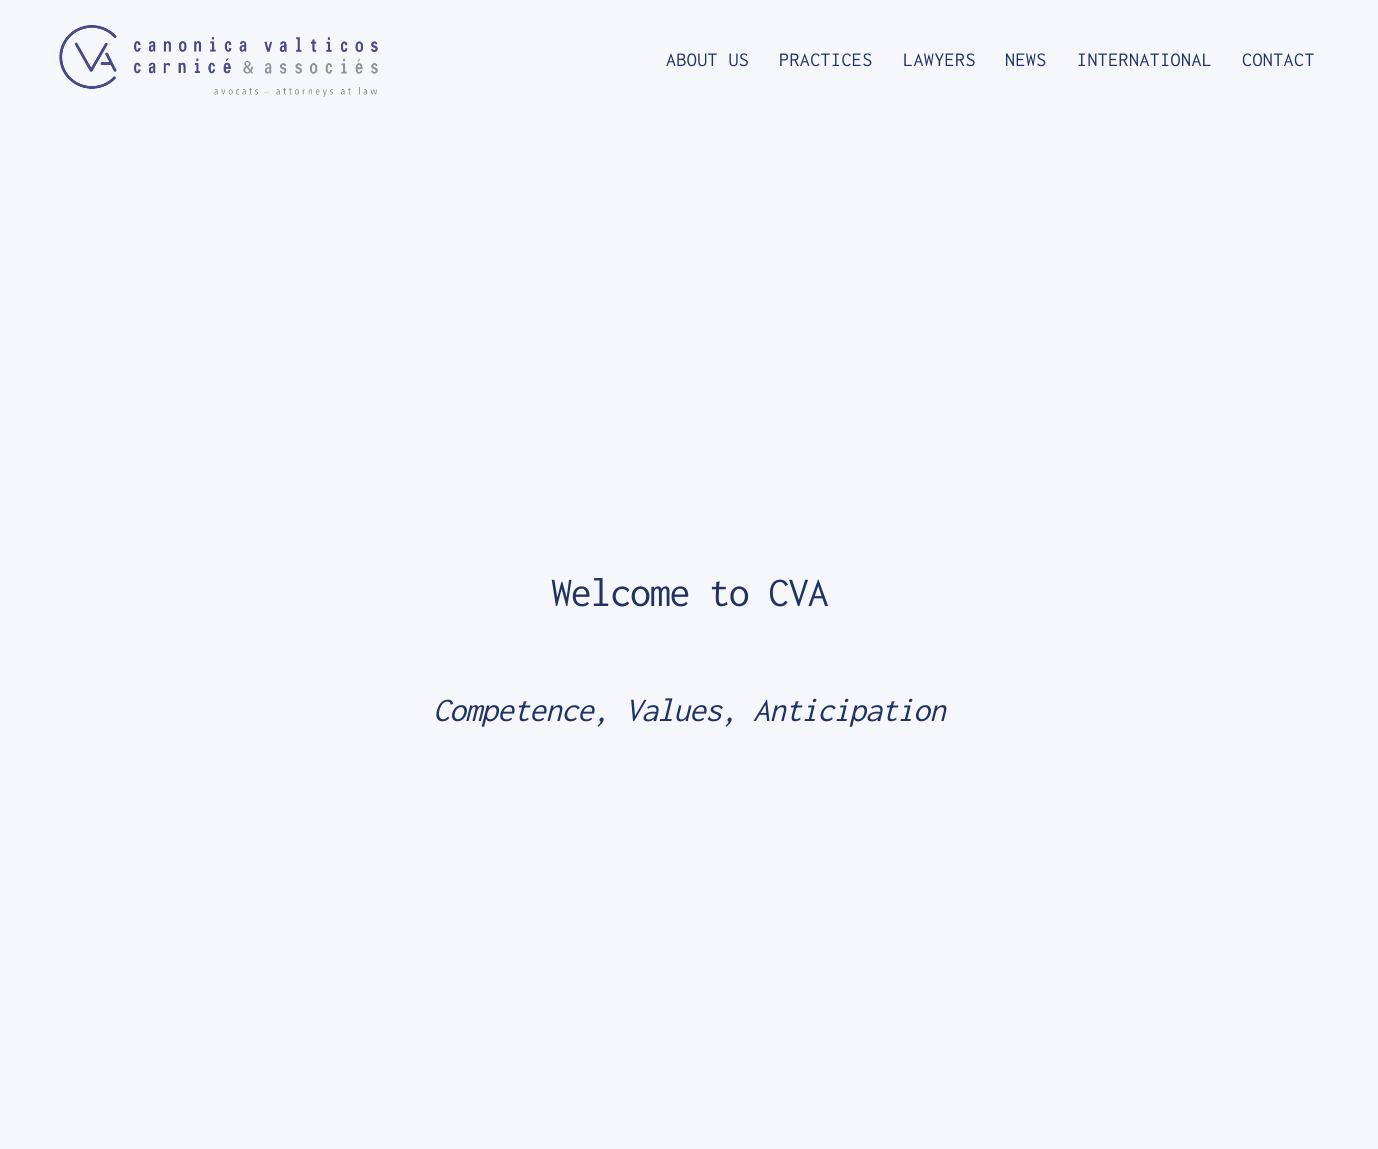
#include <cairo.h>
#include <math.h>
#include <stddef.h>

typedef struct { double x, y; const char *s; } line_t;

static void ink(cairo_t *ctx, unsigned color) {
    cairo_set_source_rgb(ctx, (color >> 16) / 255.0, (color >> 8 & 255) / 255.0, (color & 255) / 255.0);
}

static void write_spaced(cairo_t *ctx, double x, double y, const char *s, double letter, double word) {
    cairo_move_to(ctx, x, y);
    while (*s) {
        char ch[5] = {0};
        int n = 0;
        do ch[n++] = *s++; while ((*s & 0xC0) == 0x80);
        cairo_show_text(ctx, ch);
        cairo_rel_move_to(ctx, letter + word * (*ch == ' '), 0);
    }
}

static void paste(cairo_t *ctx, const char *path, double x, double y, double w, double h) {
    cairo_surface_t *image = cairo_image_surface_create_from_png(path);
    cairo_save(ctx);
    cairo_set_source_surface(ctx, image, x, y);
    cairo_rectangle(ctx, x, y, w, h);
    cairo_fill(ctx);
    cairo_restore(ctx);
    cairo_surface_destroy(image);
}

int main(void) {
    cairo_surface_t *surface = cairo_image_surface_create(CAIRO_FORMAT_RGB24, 1378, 1149);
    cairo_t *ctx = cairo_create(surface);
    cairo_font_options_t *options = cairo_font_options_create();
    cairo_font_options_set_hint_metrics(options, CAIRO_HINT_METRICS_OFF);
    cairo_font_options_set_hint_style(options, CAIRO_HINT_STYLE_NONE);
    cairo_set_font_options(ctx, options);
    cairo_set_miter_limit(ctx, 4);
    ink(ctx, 0xF6F7FB);
    cairo_paint(ctx);
    paste(ctx, "media/1.png", 59, 25, 319, 72);
    cairo_select_font_face(ctx, "Inconsolata", CAIRO_FONT_SLANT_NORMAL, CAIRO_FONT_WEIGHT_NORMAL);
    cairo_set_font_size(ctx, 20);
    ink(ctx, 0x213364);
    {
        static const line_t items[] = {
            {666, 66, "ABOUT US"},
            {779, 66, "PRACTICES"},
            {903, 66, "LAWYERS"},
            {1005, 66, "NEWS"},
            {1077, 66, "INTERNATIONAL"},
            {1242, 66, "CONTACT"},
        };
        for (size_t i = 0; i < sizeof items / sizeof *items; i++) {
            write_spaced(ctx, items[i].x, items[i].y, items[i].s, 0.4, 0);
        }
    }
    cairo_set_font_size(ctx, 42);
    write_spaced(ctx, 551, 606, "Welcome to CVA", -1.25, 0);
    cairo_select_font_face(ctx, "Inconsolata", CAIRO_FONT_SLANT_ITALIC, CAIRO_FONT_WEIGHT_NORMAL);
    cairo_set_font_size(ctx, 34);
    write_spaced(ctx, 433, 721, "Competence, Values, Anticipation", -1, 0);
    cairo_surface_write_to_png(surface, "image.png");
    cairo_font_options_destroy(options);
    cairo_destroy(ctx);
    cairo_surface_destroy(surface);
    return 0;
}
